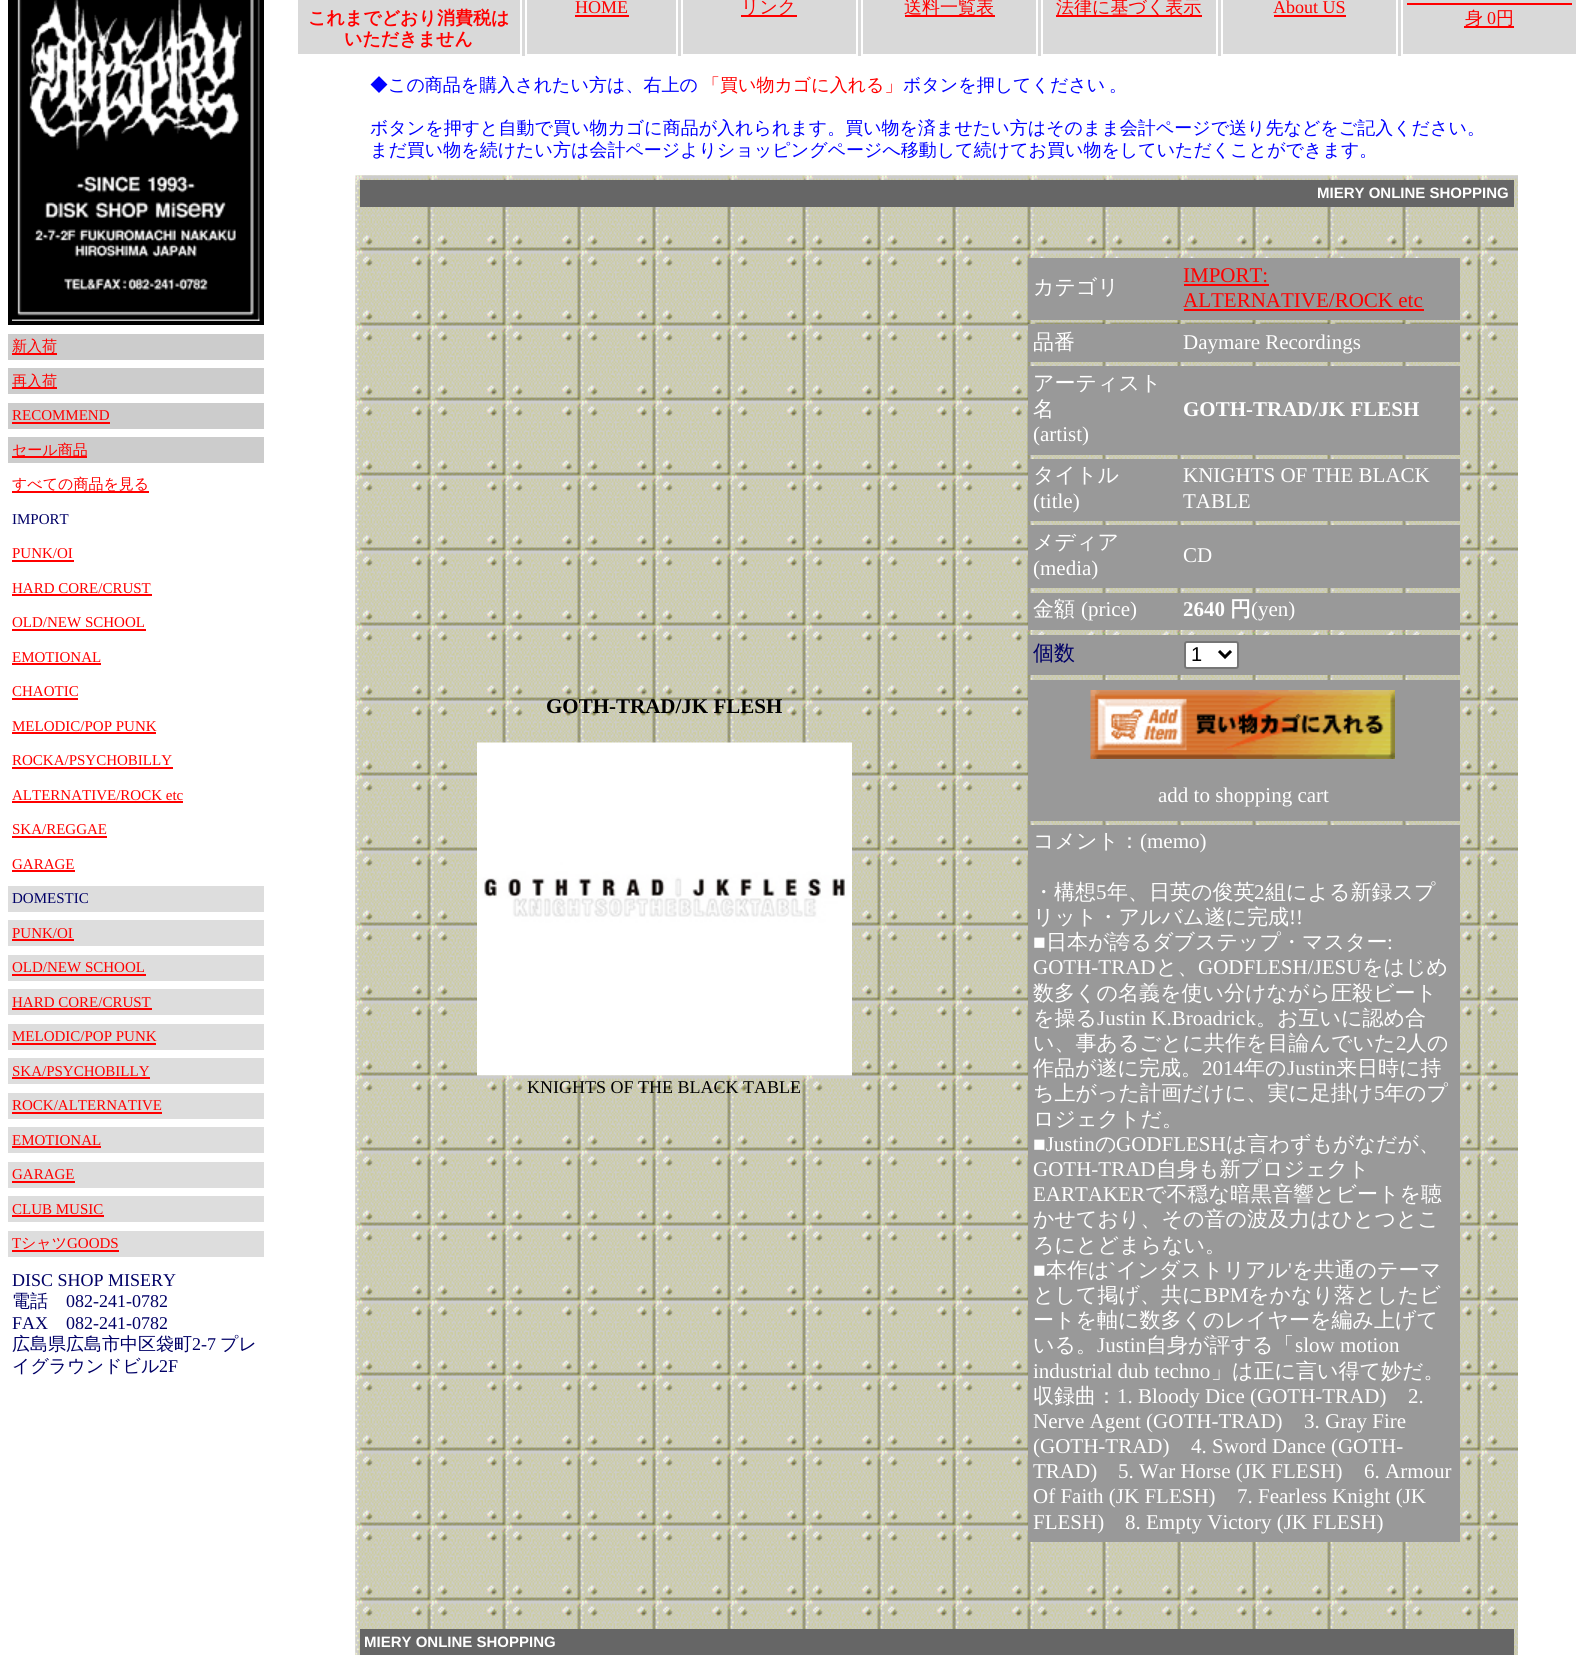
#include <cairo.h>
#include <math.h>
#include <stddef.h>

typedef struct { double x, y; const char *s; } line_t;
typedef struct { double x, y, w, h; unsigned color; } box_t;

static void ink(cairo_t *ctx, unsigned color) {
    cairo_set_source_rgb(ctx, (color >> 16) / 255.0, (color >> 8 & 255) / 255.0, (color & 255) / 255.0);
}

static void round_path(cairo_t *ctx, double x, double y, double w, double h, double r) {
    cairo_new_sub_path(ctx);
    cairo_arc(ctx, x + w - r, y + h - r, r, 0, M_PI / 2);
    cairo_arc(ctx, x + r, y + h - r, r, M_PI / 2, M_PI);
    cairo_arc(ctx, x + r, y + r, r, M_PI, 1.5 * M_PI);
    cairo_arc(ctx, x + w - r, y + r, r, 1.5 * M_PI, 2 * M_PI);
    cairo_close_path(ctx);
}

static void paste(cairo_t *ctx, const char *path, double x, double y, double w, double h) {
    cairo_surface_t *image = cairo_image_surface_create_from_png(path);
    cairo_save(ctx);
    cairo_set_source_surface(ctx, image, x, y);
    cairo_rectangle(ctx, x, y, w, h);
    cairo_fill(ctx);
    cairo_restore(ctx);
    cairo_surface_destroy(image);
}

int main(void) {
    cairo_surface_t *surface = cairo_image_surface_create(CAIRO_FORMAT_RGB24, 1582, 1655);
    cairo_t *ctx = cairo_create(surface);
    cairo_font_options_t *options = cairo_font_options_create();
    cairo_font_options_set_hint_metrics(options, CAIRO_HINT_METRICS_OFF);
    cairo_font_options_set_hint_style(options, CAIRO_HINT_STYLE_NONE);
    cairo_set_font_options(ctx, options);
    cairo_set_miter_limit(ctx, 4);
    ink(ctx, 0xFFFFFF);
    cairo_paint(ctx);
    ink(ctx, 0x000000);
    cairo_rectangle(ctx, 8, 0, 256, 325);
    cairo_fill(ctx);
    paste(ctx, "media/1.png", 12, 0, 248, 321);
    ink(ctx, 0xCCCCCC);
    cairo_rectangle(ctx, 8, 334, 256, 26);
    cairo_fill(ctx);
    ink(ctx, 0xFF0000);
    cairo_rectangle(ctx, 12, 353, 45, 2);
    cairo_fill(ctx);
    cairo_select_font_face(ctx, "WenQuanYi Zen Hei Medium", CAIRO_FONT_SLANT_NORMAL, CAIRO_FONT_WEIGHT_NORMAL);
    cairo_set_font_size(ctx, 15);
    cairo_move_to(ctx, 12, 351);
    cairo_show_text(ctx, "新入荷");
    ink(ctx, 0xCCCCCC);
    cairo_rectangle(ctx, 8, 368, 256, 26);
    cairo_fill(ctx);
    ink(ctx, 0xFF0000);
    cairo_rectangle(ctx, 12, 387, 45, 2);
    cairo_fill(ctx);
    cairo_move_to(ctx, 12, 386);
    cairo_show_text(ctx, "再入荷");
    ink(ctx, 0xCCCCCC);
    cairo_rectangle(ctx, 8, 403, 256, 26);
    cairo_fill(ctx);
    cairo_select_font_face(ctx, "Liberation Serif", CAIRO_FONT_SLANT_NORMAL, CAIRO_FONT_WEIGHT_NORMAL);
    ink(ctx, 0xFF0000);
    cairo_move_to(ctx, 12, 420);
    cairo_show_text(ctx, "RECOMMEND");
    {
        static const box_t items[] = {
            {12, 422, 98, 2, 0xFF0000},
            {8, 437, 256, 26, 0xCCCCCC},
            {12, 456, 75, 2, 0xFF0000},
        };
        for (size_t i = 0; i < sizeof items / sizeof *items; i++) {
            ink(ctx, items[i].color);
            cairo_rectangle(ctx, items[i].x, items[i].y, items[i].w, items[i].h);
            cairo_fill(ctx);
        }
    }
    cairo_select_font_face(ctx, "WenQuanYi Zen Hei Medium", CAIRO_FONT_SLANT_NORMAL, CAIRO_FONT_WEIGHT_NORMAL);
    cairo_move_to(ctx, 12, 455);
    cairo_show_text(ctx, "セール商品");
    cairo_rectangle(ctx, 12, 491, 137, 2);
    cairo_fill(ctx);
    cairo_move_to(ctx, 12, 489);
    cairo_show_text(ctx, "すべての商品を見る");
    cairo_select_font_face(ctx, "Liberation Serif", CAIRO_FONT_SLANT_NORMAL, CAIRO_FONT_WEIGHT_NORMAL);
    ink(ctx, 0x000066);
    cairo_move_to(ctx, 12, 524);
    cairo_show_text(ctx, "IMPORT");
    ink(ctx, 0xFF0000);
    cairo_move_to(ctx, 12, 558);
    cairo_show_text(ctx, "PUNK/OI");
    cairo_rectangle(ctx, 12, 560, 62, 2);
    cairo_fill(ctx);
    cairo_move_to(ctx, 12, 593);
    cairo_show_text(ctx, "HARD CORE/CRUST");
    cairo_rectangle(ctx, 12, 594, 140, 2);
    cairo_fill(ctx);
    cairo_move_to(ctx, 12, 627);
    cairo_show_text(ctx, "OLD/NEW SCHOOL");
    cairo_rectangle(ctx, 12, 629, 134, 2);
    cairo_fill(ctx);
    cairo_move_to(ctx, 12, 662);
    cairo_show_text(ctx, "EMOTIONAL");
    cairo_rectangle(ctx, 12, 663, 89, 2);
    cairo_fill(ctx);
    cairo_move_to(ctx, 12, 696);
    cairo_show_text(ctx, "CHAOTIC");
    cairo_rectangle(ctx, 12, 698, 66, 2);
    cairo_fill(ctx);
    cairo_move_to(ctx, 12, 731);
    cairo_show_text(ctx, "MELODIC/POP PUNK");
    cairo_rectangle(ctx, 12, 732, 144, 2);
    cairo_fill(ctx);
    cairo_move_to(ctx, 12, 765);
    cairo_show_text(ctx, "ROCKA/PSYCHOBILLY");
    cairo_rectangle(ctx, 12, 767, 161, 2);
    cairo_fill(ctx);
    cairo_move_to(ctx, 12, 800);
    cairo_show_text(ctx, "ALTERNATIVE/ROCK etc");
    cairo_rectangle(ctx, 12, 801, 171, 2);
    cairo_fill(ctx);
    cairo_move_to(ctx, 12, 834);
    cairo_show_text(ctx, "SKA/REGGAE");
    cairo_rectangle(ctx, 12, 836, 95, 2);
    cairo_fill(ctx);
    cairo_move_to(ctx, 12, 869);
    cairo_show_text(ctx, "GARAGE");
    cairo_rectangle(ctx, 12, 870, 63, 2);
    cairo_fill(ctx);
    ink(ctx, 0xDDDDDD);
    cairo_rectangle(ctx, 8, 886, 256, 26);
    cairo_fill(ctx);
    ink(ctx, 0x000066);
    cairo_move_to(ctx, 12, 903);
    cairo_show_text(ctx, "DOMESTIC");
    ink(ctx, 0xDDDDDD);
    cairo_rectangle(ctx, 8, 920, 256, 26);
    cairo_fill(ctx);
    ink(ctx, 0xFF0000);
    cairo_move_to(ctx, 12, 938);
    cairo_show_text(ctx, "PUNK/OI");
    cairo_rectangle(ctx, 12, 939, 62, 2);
    cairo_fill(ctx);
    ink(ctx, 0xDDDDDD);
    cairo_rectangle(ctx, 8, 955, 256, 26);
    cairo_fill(ctx);
    ink(ctx, 0xFF0000);
    cairo_move_to(ctx, 12, 972);
    cairo_show_text(ctx, "OLD/NEW SCHOOL");
    cairo_rectangle(ctx, 12, 974, 134, 2);
    cairo_fill(ctx);
    ink(ctx, 0xDDDDDD);
    cairo_rectangle(ctx, 8, 989, 256, 26);
    cairo_fill(ctx);
    ink(ctx, 0xFF0000);
    cairo_move_to(ctx, 12, 1007);
    cairo_show_text(ctx, "HARD CORE/CRUST");
    cairo_rectangle(ctx, 12, 1008, 140, 2);
    cairo_fill(ctx);
    ink(ctx, 0xDDDDDD);
    cairo_rectangle(ctx, 8, 1024, 256, 26);
    cairo_fill(ctx);
    ink(ctx, 0xFF0000);
    cairo_move_to(ctx, 12, 1041);
    cairo_show_text(ctx, "MELODIC/POP PUNK");
    cairo_rectangle(ctx, 12, 1043, 144, 2);
    cairo_fill(ctx);
    ink(ctx, 0xDDDDDD);
    cairo_rectangle(ctx, 8, 1058, 256, 26);
    cairo_fill(ctx);
    ink(ctx, 0xFF0000);
    cairo_move_to(ctx, 12, 1076);
    cairo_show_text(ctx, "SKA/PSYCHOBILLY");
    cairo_rectangle(ctx, 12, 1077, 138, 2);
    cairo_fill(ctx);
    ink(ctx, 0xDDDDDD);
    cairo_rectangle(ctx, 8, 1093, 256, 26);
    cairo_fill(ctx);
    ink(ctx, 0xFF0000);
    cairo_move_to(ctx, 12, 1110);
    cairo_show_text(ctx, "ROCK/ALTERNATIVE");
    cairo_rectangle(ctx, 12, 1112, 150, 2);
    cairo_fill(ctx);
    ink(ctx, 0xDDDDDD);
    cairo_rectangle(ctx, 8, 1127, 256, 26);
    cairo_fill(ctx);
    ink(ctx, 0xFF0000);
    cairo_move_to(ctx, 12, 1145);
    cairo_show_text(ctx, "EMOTIONAL");
    cairo_rectangle(ctx, 12, 1146, 89, 2);
    cairo_fill(ctx);
    ink(ctx, 0xDDDDDD);
    cairo_rectangle(ctx, 8, 1162, 256, 26);
    cairo_fill(ctx);
    ink(ctx, 0xFF0000);
    cairo_move_to(ctx, 12, 1179);
    cairo_show_text(ctx, "GARAGE");
    cairo_rectangle(ctx, 12, 1181, 63, 2);
    cairo_fill(ctx);
    ink(ctx, 0xDDDDDD);
    cairo_rectangle(ctx, 8, 1196, 256, 26);
    cairo_fill(ctx);
    ink(ctx, 0xFF0000);
    cairo_move_to(ctx, 12, 1214);
    cairo_show_text(ctx, "CLUB MUSIC");
    cairo_rectangle(ctx, 12, 1215, 92, 2);
    cairo_fill(ctx);
    ink(ctx, 0xDDDDDD);
    cairo_rectangle(ctx, 8, 1231, 256, 26);
    cairo_fill(ctx);
    ink(ctx, 0xFF0000);
    cairo_move_to(ctx, 12, 1248);
    cairo_show_text(ctx, "T");
    cairo_select_font_face(ctx, "WenQuanYi Zen Hei Medium", CAIRO_FONT_SLANT_NORMAL, CAIRO_FONT_WEIGHT_NORMAL);
    cairo_move_to(ctx, 21, 1248);
    cairo_show_text(ctx, "シャツ");
    cairo_rectangle(ctx, 12, 1250, 107, 2);
    cairo_fill(ctx);
    cairo_select_font_face(ctx, "Liberation Serif", CAIRO_FONT_SLANT_NORMAL, CAIRO_FONT_WEIGHT_NORMAL);
    cairo_move_to(ctx, 67, 1248);
    cairo_show_text(ctx, "GOODS");
    cairo_set_font_size(ctx, 18);
    ink(ctx, 0x000066);
    cairo_move_to(ctx, 12, 1286);
    cairo_show_text(ctx, "DISC SHOP MISERY");
    cairo_select_font_face(ctx, "WenQuanYi Zen Hei Medium", CAIRO_FONT_SLANT_NORMAL, CAIRO_FONT_WEIGHT_NORMAL);
    cairo_move_to(ctx, 12, 1307);
    cairo_show_text(ctx, "電話");
    cairo_select_font_face(ctx, "Liberation Serif", CAIRO_FONT_SLANT_NORMAL, CAIRO_FONT_WEIGHT_NORMAL);
    {
        static const line_t items[] = {
            {66, 1307, "082-241-0782"},
            {12, 1329, "FAX"},
            {66, 1329, "082-241-0782"},
        };
        for (size_t i = 0; i < sizeof items / sizeof *items; i++) {
            cairo_move_to(ctx, items[i].x, items[i].y);
            cairo_show_text(ctx, items[i].s);
        }
    }
    cairo_select_font_face(ctx, "WenQuanYi Zen Hei Medium", CAIRO_FONT_SLANT_NORMAL, CAIRO_FONT_WEIGHT_NORMAL);
    cairo_move_to(ctx, 12, 1350);
    cairo_show_text(ctx, "広島県広島市中区袋町");
    cairo_select_font_face(ctx, "Liberation Serif", CAIRO_FONT_SLANT_NORMAL, CAIRO_FONT_WEIGHT_NORMAL);
    cairo_move_to(ctx, 192, 1350);
    cairo_show_text(ctx, "2-7");
    cairo_select_font_face(ctx, "WenQuanYi Zen Hei Medium", CAIRO_FONT_SLANT_NORMAL, CAIRO_FONT_WEIGHT_NORMAL);
    cairo_move_to(ctx, 220, 1350);
    cairo_show_text(ctx, "プレ");
    cairo_move_to(ctx, 12, 1372);
    cairo_show_text(ctx, "イグラウンドビル");
    cairo_select_font_face(ctx, "Liberation Serif", CAIRO_FONT_SLANT_NORMAL, CAIRO_FONT_WEIGHT_NORMAL);
    cairo_move_to(ctx, 159, 1372);
    cairo_show_text(ctx, "2F");
    ink(ctx, 0xD9D9D9);
    cairo_rectangle(ctx, 298, 0, 1278, 56);
    cairo_fill(ctx);
    cairo_rectangle(ctx, 526, -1, 151, 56);
    ink(ctx, 0xFFFFFF);
    cairo_stroke(ctx);
    ink(ctx, 0xFF0000);
    cairo_move_to(ctx, 575, 13);
    cairo_show_text(ctx, "HOME");
    cairo_rectangle(ctx, 575, 15, 54, 2);
    cairo_fill(ctx);
    cairo_rectangle(ctx, 682, -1, 175, 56);
    ink(ctx, 0xFFFFFF);
    cairo_stroke(ctx);
    ink(ctx, 0xFF0000);
    cairo_rectangle(ctx, 741, 15, 56, 2);
    cairo_fill(ctx);
    cairo_select_font_face(ctx, "WenQuanYi Zen Hei Medium", CAIRO_FONT_SLANT_NORMAL, CAIRO_FONT_WEIGHT_NORMAL);
    cairo_move_to(ctx, 741, 13);
    cairo_show_text(ctx, "リンク");
    cairo_rectangle(ctx, 862, -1, 175, 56);
    ink(ctx, 0xFFFFFF);
    cairo_stroke(ctx);
    ink(ctx, 0xFF0000);
    cairo_rectangle(ctx, 905, 15, 90, 2);
    cairo_fill(ctx);
    cairo_move_to(ctx, 904, 13);
    cairo_show_text(ctx, "送料一覧表");
    cairo_rectangle(ctx, 1042, -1, 175, 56);
    ink(ctx, 0xFFFFFF);
    cairo_stroke(ctx);
    ink(ctx, 0xFF0000);
    cairo_rectangle(ctx, 1056, 15, 146, 2);
    cairo_fill(ctx);
    cairo_move_to(ctx, 1056, 13);
    cairo_show_text(ctx, "法律に基づく表示");
    cairo_rectangle(ctx, 1222, -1, 175, 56);
    ink(ctx, 0xFFFFFF);
    cairo_stroke(ctx);
    cairo_select_font_face(ctx, "Liberation Serif", CAIRO_FONT_SLANT_NORMAL, CAIRO_FONT_WEIGHT_NORMAL);
    ink(ctx, 0xFF0000);
    cairo_move_to(ctx, 1273, 13);
    cairo_show_text(ctx, "About US");
    cairo_rectangle(ctx, 1274, 15, 72, 2);
    cairo_fill(ctx);
    cairo_rectangle(ctx, 297, -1, 224, 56);
    ink(ctx, 0xFFFFFF);
    cairo_stroke(ctx);
    cairo_select_font_face(ctx, "WenQuanYi Zen Hei", CAIRO_FONT_SLANT_NORMAL, CAIRO_FONT_WEIGHT_BOLD);
    ink(ctx, 0xFF0000);
    cairo_move_to(ctx, 308, 24);
    cairo_show_text(ctx, "これまでどおり消費税は");
    cairo_move_to(ctx, 344, 45);
    cairo_show_text(ctx, "いただきません");
    cairo_rectangle(ctx, 1402, -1, 175, 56);
    ink(ctx, 0xFFFFFF);
    cairo_stroke(ctx);
    ink(ctx, 0xFF0000);
    cairo_rectangle(ctx, 1464, 26, 50, 2);
    cairo_fill(ctx);
    cairo_select_font_face(ctx, "WenQuanYi Zen Hei Medium", CAIRO_FONT_SLANT_NORMAL, CAIRO_FONT_WEIGHT_NORMAL);
    cairo_move_to(ctx, 1465, 24);
    cairo_show_text(ctx, "身");
    cairo_rectangle(ctx, 1407, 3, 165, 2);
    cairo_fill(ctx);
    cairo_select_font_face(ctx, "Liberation Serif", CAIRO_FONT_SLANT_NORMAL, CAIRO_FONT_WEIGHT_NORMAL);
    cairo_move_to(ctx, 1487, 24);
    cairo_show_text(ctx, "0");
    cairo_select_font_face(ctx, "WenQuanYi Zen Hei Medium", CAIRO_FONT_SLANT_NORMAL, CAIRO_FONT_WEIGHT_NORMAL);
    cairo_move_to(ctx, 1496, 24);
    cairo_show_text(ctx, "円");
    ink(ctx, 0x0000FF);
    cairo_move_to(ctx, 370, 91);
    cairo_show_text(ctx, "◆この商品を購入されたい方は、右上の");
    ink(ctx, 0xFF0000);
    cairo_move_to(ctx, 702, 91);
    cairo_show_text(ctx, "「買い物カゴに入れる」");
    ink(ctx, 0x0000FF);
    {
        static const line_t items[] = {
            {903, 91, "ボタンを押してください"},
            {1109, 91, "。"},
            {370, 134, "ボタンを押すと自動で買い物カゴに商品が入れられます。買い物を済ませたい方はそのまま会計ページで送り先などをご記入ください。"},
            {370, 156, "まだ買い物を続けたい方は会計ページよりショッピングページへ移動して続けてお買い物をしていただくことができます。"},
        };
        for (size_t i = 0; i < sizeof items / sizeof *items; i++) {
            cairo_move_to(ctx, items[i].x, items[i].y);
            cairo_show_text(ctx, items[i].s);
        }
    }
    paste(ctx, "media/2.png", 355, 175, 1163, 1480);
    ink(ctx, 0x666666);
    cairo_rectangle(ctx, 360, 180, 1154, 27);
    cairo_fill(ctx);
    cairo_select_font_face(ctx, "Liberation Sans", CAIRO_FONT_SLANT_NORMAL, CAIRO_FONT_WEIGHT_BOLD);
    cairo_set_font_size(ctx, 15);
    ink(ctx, 0xFFFFFF);
    cairo_move_to(ctx, 1317, 198);
    cairo_show_text(ctx, "MIERY ONLINE SHOPPING");
    cairo_select_font_face(ctx, "Liberation Serif", CAIRO_FONT_SLANT_NORMAL, CAIRO_FONT_WEIGHT_BOLD);
    cairo_set_font_size(ctx, 21);
    ink(ctx, 0x000000);
    cairo_move_to(ctx, 546, 713);
    cairo_show_text(ctx, "GOTH-TRAD/JK FLESH");
    paste(ctx, "media/3.png", 477, 742, 375, 334);
    cairo_select_font_face(ctx, "Liberation Serif", CAIRO_FONT_SLANT_NORMAL, CAIRO_FONT_WEIGHT_NORMAL);
    cairo_set_font_size(ctx, 18);
    cairo_move_to(ctx, 527, 1093);
    cairo_show_text(ctx, "KNIGHTS OF THE BLACK TABLE");
    ink(ctx, 0x999999);
    cairo_rectangle(ctx, 1028, 258, 432, 62);
    cairo_fill(ctx);
    cairo_select_font_face(ctx, "WenQuanYi Zen Hei Medium", CAIRO_FONT_SLANT_NORMAL, CAIRO_FONT_WEIGHT_NORMAL);
    cairo_set_font_size(ctx, 21);
    ink(ctx, 0xFFFFFF);
    cairo_move_to(ctx, 1033, 294);
    cairo_show_text(ctx, "カテゴリ");
    cairo_select_font_face(ctx, "Liberation Serif", CAIRO_FONT_SLANT_NORMAL, CAIRO_FONT_WEIGHT_NORMAL);
    ink(ctx, 0xFF0000);
    cairo_move_to(ctx, 1183, 282);
    cairo_show_text(ctx, "IMPORT:");
    cairo_rectangle(ctx, 1184, 284, 85, 2);
    cairo_fill(ctx);
    cairo_move_to(ctx, 1183, 307);
    cairo_show_text(ctx, "ALTERNATIVE/ROCK etc");
    cairo_rectangle(ctx, 1184, 309, 240, 2);
    cairo_fill(ctx);
    ink(ctx, 0x999999);
    cairo_rectangle(ctx, 1028, 324, 432, 38);
    cairo_fill(ctx);
    cairo_select_font_face(ctx, "WenQuanYi Zen Hei Medium", CAIRO_FONT_SLANT_NORMAL, CAIRO_FONT_WEIGHT_NORMAL);
    ink(ctx, 0xFFFFFF);
    cairo_move_to(ctx, 1033, 349);
    cairo_show_text(ctx, "品番");
    cairo_select_font_face(ctx, "Liberation Serif", CAIRO_FONT_SLANT_NORMAL, CAIRO_FONT_WEIGHT_NORMAL);
    cairo_move_to(ctx, 1183, 349);
    cairo_show_text(ctx, "Daymare Recordings");
    ink(ctx, 0x999999);
    cairo_rectangle(ctx, 1028, 366, 432, 89);
    cairo_fill(ctx);
    cairo_select_font_face(ctx, "WenQuanYi Zen Hei Medium", CAIRO_FONT_SLANT_NORMAL, CAIRO_FONT_WEIGHT_NORMAL);
    ink(ctx, 0xFFFFFF);
    cairo_move_to(ctx, 1033, 390);
    cairo_show_text(ctx, "アーティスト");
    cairo_move_to(ctx, 1033, 416);
    cairo_show_text(ctx, "名");
    cairo_select_font_face(ctx, "Liberation Serif", CAIRO_FONT_SLANT_NORMAL, CAIRO_FONT_WEIGHT_NORMAL);
    cairo_move_to(ctx, 1033, 441);
    cairo_show_text(ctx, "(artist)");
    cairo_select_font_face(ctx, "Liberation Serif", CAIRO_FONT_SLANT_NORMAL, CAIRO_FONT_WEIGHT_BOLD);
    cairo_move_to(ctx, 1183, 416);
    cairo_show_text(ctx, "GOTH-TRAD/JK FLESH");
    ink(ctx, 0x999999);
    cairo_rectangle(ctx, 1028, 459, 432, 62);
    cairo_fill(ctx);
    cairo_select_font_face(ctx, "WenQuanYi Zen Hei Medium", CAIRO_FONT_SLANT_NORMAL, CAIRO_FONT_WEIGHT_NORMAL);
    ink(ctx, 0xFFFFFF);
    cairo_move_to(ctx, 1033, 482);
    cairo_show_text(ctx, "タイトル");
    cairo_select_font_face(ctx, "Liberation Serif", CAIRO_FONT_SLANT_NORMAL, CAIRO_FONT_WEIGHT_NORMAL);
    {
        static const line_t items[] = {
            {1033, 508, "(title)"},
            {1183, 482, "KNIGHTS OF THE BLACK"},
            {1183, 508, "TABLE"},
        };
        for (size_t i = 0; i < sizeof items / sizeof *items; i++) {
            cairo_move_to(ctx, items[i].x, items[i].y);
            cairo_show_text(ctx, items[i].s);
        }
    }
    ink(ctx, 0x999999);
    cairo_rectangle(ctx, 1028, 525, 432, 63);
    cairo_fill(ctx);
    cairo_select_font_face(ctx, "WenQuanYi Zen Hei Medium", CAIRO_FONT_SLANT_NORMAL, CAIRO_FONT_WEIGHT_NORMAL);
    ink(ctx, 0xFFFFFF);
    cairo_move_to(ctx, 1033, 549);
    cairo_show_text(ctx, "メディア");
    cairo_select_font_face(ctx, "Liberation Serif", CAIRO_FONT_SLANT_NORMAL, CAIRO_FONT_WEIGHT_NORMAL);
    cairo_move_to(ctx, 1033, 575);
    cairo_show_text(ctx, "(media)");
    cairo_move_to(ctx, 1183, 562);
    cairo_show_text(ctx, "CD");
    ink(ctx, 0x999999);
    cairo_rectangle(ctx, 1028, 593, 432, 37);
    cairo_fill(ctx);
    cairo_select_font_face(ctx, "WenQuanYi Zen Hei Medium", CAIRO_FONT_SLANT_NORMAL, CAIRO_FONT_WEIGHT_NORMAL);
    ink(ctx, 0xFFFFFF);
    cairo_move_to(ctx, 1033, 616);
    cairo_show_text(ctx, "金額");
    cairo_select_font_face(ctx, "Liberation Serif", CAIRO_FONT_SLANT_NORMAL, CAIRO_FONT_WEIGHT_NORMAL);
    cairo_move_to(ctx, 1081, 616);
    cairo_show_text(ctx, "(price)");
    cairo_select_font_face(ctx, "Liberation Serif", CAIRO_FONT_SLANT_NORMAL, CAIRO_FONT_WEIGHT_BOLD);
    cairo_move_to(ctx, 1183, 616);
    cairo_show_text(ctx, "2640");
    cairo_select_font_face(ctx, "WenQuanYi Zen Hei", CAIRO_FONT_SLANT_NORMAL, CAIRO_FONT_WEIGHT_BOLD);
    cairo_move_to(ctx, 1230, 616);
    cairo_show_text(ctx, "円");
    cairo_select_font_face(ctx, "Liberation Serif", CAIRO_FONT_SLANT_NORMAL, CAIRO_FONT_WEIGHT_NORMAL);
    cairo_move_to(ctx, 1251, 616);
    cairo_show_text(ctx, "(yen)");
    ink(ctx, 0x999999);
    cairo_rectangle(ctx, 1028, 635, 432, 40);
    cairo_fill(ctx);
    cairo_select_font_face(ctx, "WenQuanYi Zen Hei Medium", CAIRO_FONT_SLANT_NORMAL, CAIRO_FONT_WEIGHT_NORMAL);
    ink(ctx, 0x000066);
    cairo_move_to(ctx, 1033, 660);
    cairo_show_text(ctx, "個数");
    ink(ctx, 0xFFFFFF);
    round_path(ctx, 1185, 642, 53, 26, 2);
    cairo_fill_preserve(ctx);
    ink(ctx, 0x767676);
    cairo_stroke(ctx);
    cairo_new_path(ctx);
    cairo_move_to(ctx, 1219, 651);
    cairo_line_to(ctx, 1225, 657);
    cairo_line_to(ctx, 1231, 651);
    ink(ctx, 0x000000);
    cairo_set_line_width(ctx, 3);
    cairo_stroke(ctx);
    cairo_select_font_face(ctx, "Liberation Sans", CAIRO_FONT_SLANT_NORMAL, CAIRO_FONT_WEIGHT_NORMAL);
    cairo_set_font_size(ctx, 20);
    cairo_move_to(ctx, 1191, 661);
    cairo_show_text(ctx, "1");
    ink(ctx, 0x999999);
    cairo_rectangle(ctx, 1028, 680, 432, 141);
    cairo_fill(ctx);
    paste(ctx, "media/4.png", 1090, 690, 305, 69);
    cairo_select_font_face(ctx, "Liberation Serif", CAIRO_FONT_SLANT_NORMAL, CAIRO_FONT_WEIGHT_NORMAL);
    cairo_set_font_size(ctx, 21);
    ink(ctx, 0xFFFFFF);
    cairo_move_to(ctx, 1158, 802);
    cairo_show_text(ctx, "add to shopping cart");
    ink(ctx, 0x999999);
    cairo_rectangle(ctx, 1028, 825, 432, 717);
    cairo_fill(ctx);
    cairo_select_font_face(ctx, "WenQuanYi Zen Hei Medium", CAIRO_FONT_SLANT_NORMAL, CAIRO_FONT_WEIGHT_NORMAL);
    ink(ctx, 0xFFFFFF);
    cairo_move_to(ctx, 1033, 848);
    cairo_show_text(ctx, "コメント：");
    cairo_select_font_face(ctx, "Liberation Serif", CAIRO_FONT_SLANT_NORMAL, CAIRO_FONT_WEIGHT_NORMAL);
    cairo_move_to(ctx, 1140, 848);
    cairo_show_text(ctx, "(memo)");
    cairo_select_font_face(ctx, "WenQuanYi Zen Hei Medium", CAIRO_FONT_SLANT_NORMAL, CAIRO_FONT_WEIGHT_NORMAL);
    cairo_move_to(ctx, 1033, 899);
    cairo_show_text(ctx, "・構想");
    cairo_select_font_face(ctx, "Liberation Serif", CAIRO_FONT_SLANT_NORMAL, CAIRO_FONT_WEIGHT_NORMAL);
    cairo_move_to(ctx, 1096, 899);
    cairo_show_text(ctx, "5");
    cairo_select_font_face(ctx, "WenQuanYi Zen Hei Medium", CAIRO_FONT_SLANT_NORMAL, CAIRO_FONT_WEIGHT_NORMAL);
    cairo_move_to(ctx, 1107, 899);
    cairo_show_text(ctx, "年、日英の俊英");
    cairo_select_font_face(ctx, "Liberation Serif", CAIRO_FONT_SLANT_NORMAL, CAIRO_FONT_WEIGHT_NORMAL);
    cairo_move_to(ctx, 1254, 899);
    cairo_show_text(ctx, "2");
    cairo_select_font_face(ctx, "WenQuanYi Zen Hei Medium", CAIRO_FONT_SLANT_NORMAL, CAIRO_FONT_WEIGHT_NORMAL);
    cairo_move_to(ctx, 1265, 899);
    cairo_show_text(ctx, "組による新録スプ");
    cairo_move_to(ctx, 1033, 924);
    cairo_show_text(ctx, "リット・アルバム遂に完成");
    cairo_select_font_face(ctx, "Liberation Serif", CAIRO_FONT_SLANT_NORMAL, CAIRO_FONT_WEIGHT_NORMAL);
    cairo_move_to(ctx, 1289, 924);
    cairo_show_text(ctx, "!!");
    cairo_move_to(ctx, 1033, 949);
    cairo_show_text(ctx, "■");
    cairo_select_font_face(ctx, "WenQuanYi Zen Hei Medium", CAIRO_FONT_SLANT_NORMAL, CAIRO_FONT_WEIGHT_NORMAL);
    cairo_move_to(ctx, 1046, 949);
    cairo_show_text(ctx, "日本が誇るダブステップ・マスター");
    cairo_select_font_face(ctx, "Liberation Serif", CAIRO_FONT_SLANT_NORMAL, CAIRO_FONT_WEIGHT_NORMAL);
    cairo_move_to(ctx, 1387, 949);
    cairo_show_text(ctx, ":");
    cairo_move_to(ctx, 1033, 974);
    cairo_show_text(ctx, "GOTH-TRAD");
    cairo_select_font_face(ctx, "WenQuanYi Zen Hei Medium", CAIRO_FONT_SLANT_NORMAL, CAIRO_FONT_WEIGHT_NORMAL);
    cairo_move_to(ctx, 1156, 974);
    cairo_show_text(ctx, "と、");
    cairo_select_font_face(ctx, "Liberation Serif", CAIRO_FONT_SLANT_NORMAL, CAIRO_FONT_WEIGHT_NORMAL);
    cairo_move_to(ctx, 1198, 974);
    cairo_show_text(ctx, "GODFLESH/JESU");
    cairo_select_font_face(ctx, "WenQuanYi Zen Hei Medium", CAIRO_FONT_SLANT_NORMAL, CAIRO_FONT_WEIGHT_NORMAL);
    {
        static const line_t items[] = {
            {1362, 974, "をはじめ"},
            {1033, 1000, "数多くの名義を使い分けながら圧殺ビート"},
            {1033, 1025, "を操る"},
        };
        for (size_t i = 0; i < sizeof items / sizeof *items; i++) {
            cairo_move_to(ctx, items[i].x, items[i].y);
            cairo_show_text(ctx, items[i].s);
        }
    }
    cairo_select_font_face(ctx, "Liberation Serif", CAIRO_FONT_SLANT_NORMAL, CAIRO_FONT_WEIGHT_NORMAL);
    cairo_move_to(ctx, 1097, 1025);
    cairo_show_text(ctx, "Justin K.Broadrick");
    cairo_select_font_face(ctx, "WenQuanYi Zen Hei Medium", CAIRO_FONT_SLANT_NORMAL, CAIRO_FONT_WEIGHT_NORMAL);
    cairo_move_to(ctx, 1256, 1025);
    cairo_show_text(ctx, "。お互いに認め合");
    cairo_move_to(ctx, 1033, 1050);
    cairo_show_text(ctx, "い、事あるごとに共作を目論んでいた");
    cairo_select_font_face(ctx, "Liberation Serif", CAIRO_FONT_SLANT_NORMAL, CAIRO_FONT_WEIGHT_NORMAL);
    cairo_move_to(ctx, 1396, 1050);
    cairo_show_text(ctx, "2");
    cairo_select_font_face(ctx, "WenQuanYi Zen Hei Medium", CAIRO_FONT_SLANT_NORMAL, CAIRO_FONT_WEIGHT_NORMAL);
    cairo_move_to(ctx, 1406, 1050);
    cairo_show_text(ctx, "人の");
    cairo_move_to(ctx, 1033, 1075);
    cairo_show_text(ctx, "作品が遂に完成。");
    cairo_select_font_face(ctx, "Liberation Serif", CAIRO_FONT_SLANT_NORMAL, CAIRO_FONT_WEIGHT_NORMAL);
    cairo_move_to(ctx, 1202, 1075);
    cairo_show_text(ctx, "2014");
    cairo_select_font_face(ctx, "WenQuanYi Zen Hei Medium", CAIRO_FONT_SLANT_NORMAL, CAIRO_FONT_WEIGHT_NORMAL);
    cairo_move_to(ctx, 1244, 1075);
    cairo_show_text(ctx, "年の");
    cairo_select_font_face(ctx, "Liberation Serif", CAIRO_FONT_SLANT_NORMAL, CAIRO_FONT_WEIGHT_NORMAL);
    cairo_move_to(ctx, 1287, 1075);
    cairo_show_text(ctx, "Justin");
    cairo_select_font_face(ctx, "WenQuanYi Zen Hei Medium", CAIRO_FONT_SLANT_NORMAL, CAIRO_FONT_WEIGHT_NORMAL);
    cairo_move_to(ctx, 1336, 1075);
    cairo_show_text(ctx, "来日時に持");
    cairo_move_to(ctx, 1033, 1100);
    cairo_show_text(ctx, "ち上がった計画だけに、実に足掛け");
    cairo_select_font_face(ctx, "Liberation Serif", CAIRO_FONT_SLANT_NORMAL, CAIRO_FONT_WEIGHT_NORMAL);
    cairo_move_to(ctx, 1374, 1100);
    cairo_show_text(ctx, "5");
    cairo_select_font_face(ctx, "WenQuanYi Zen Hei Medium", CAIRO_FONT_SLANT_NORMAL, CAIRO_FONT_WEIGHT_NORMAL);
    cairo_move_to(ctx, 1384, 1100);
    cairo_show_text(ctx, "年のプ");
    cairo_move_to(ctx, 1033, 1126);
    cairo_show_text(ctx, "ロジェクトだ。");
    cairo_select_font_face(ctx, "Liberation Serif", CAIRO_FONT_SLANT_NORMAL, CAIRO_FONT_WEIGHT_NORMAL);
    cairo_move_to(ctx, 1033, 1151);
    cairo_show_text(ctx, "■Justin");
    cairo_select_font_face(ctx, "WenQuanYi Zen Hei Medium", CAIRO_FONT_SLANT_NORMAL, CAIRO_FONT_WEIGHT_NORMAL);
    cairo_move_to(ctx, 1095, 1151);
    cairo_show_text(ctx, "の");
    cairo_select_font_face(ctx, "Liberation Serif", CAIRO_FONT_SLANT_NORMAL, CAIRO_FONT_WEIGHT_NORMAL);
    cairo_move_to(ctx, 1116, 1151);
    cairo_show_text(ctx, "GODFLESH");
    cairo_select_font_face(ctx, "WenQuanYi Zen Hei Medium", CAIRO_FONT_SLANT_NORMAL, CAIRO_FONT_WEIGHT_NORMAL);
    cairo_move_to(ctx, 1226, 1151);
    cairo_show_text(ctx, "は言わずもがなだが、");
    cairo_select_font_face(ctx, "Liberation Serif", CAIRO_FONT_SLANT_NORMAL, CAIRO_FONT_WEIGHT_NORMAL);
    cairo_move_to(ctx, 1033, 1176);
    cairo_show_text(ctx, "GOTH-TRAD");
    cairo_select_font_face(ctx, "WenQuanYi Zen Hei Medium", CAIRO_FONT_SLANT_NORMAL, CAIRO_FONT_WEIGHT_NORMAL);
    cairo_move_to(ctx, 1156, 1176);
    cairo_show_text(ctx, "自身も新プロジェクト");
    cairo_select_font_face(ctx, "Liberation Serif", CAIRO_FONT_SLANT_NORMAL, CAIRO_FONT_WEIGHT_NORMAL);
    cairo_move_to(ctx, 1033, 1201);
    cairo_show_text(ctx, "EARTAKER");
    cairo_select_font_face(ctx, "WenQuanYi Zen Hei Medium", CAIRO_FONT_SLANT_NORMAL, CAIRO_FONT_WEIGHT_NORMAL);
    {
        static const line_t items[] = {
            {1145, 1201, "で不穏な暗黒音響とビートを聴"},
            {1033, 1226, "かせており、その音の波及力はひとつとこ"},
            {1033, 1252, "ろにとどまらない。"},
        };
        for (size_t i = 0; i < sizeof items / sizeof *items; i++) {
            cairo_move_to(ctx, items[i].x, items[i].y);
            cairo_show_text(ctx, items[i].s);
        }
    }
    cairo_select_font_face(ctx, "Liberation Serif", CAIRO_FONT_SLANT_NORMAL, CAIRO_FONT_WEIGHT_NORMAL);
    cairo_move_to(ctx, 1033, 1277);
    cairo_show_text(ctx, "■");
    cairo_select_font_face(ctx, "WenQuanYi Zen Hei Medium", CAIRO_FONT_SLANT_NORMAL, CAIRO_FONT_WEIGHT_NORMAL);
    cairo_move_to(ctx, 1046, 1277);
    cairo_show_text(ctx, "本作は");
    cairo_select_font_face(ctx, "Liberation Serif", CAIRO_FONT_SLANT_NORMAL, CAIRO_FONT_WEIGHT_NORMAL);
    cairo_move_to(ctx, 1109, 1277);
    cairo_show_text(ctx, "`");
    cairo_select_font_face(ctx, "WenQuanYi Zen Hei Medium", CAIRO_FONT_SLANT_NORMAL, CAIRO_FONT_WEIGHT_NORMAL);
    cairo_move_to(ctx, 1116, 1277);
    cairo_show_text(ctx, "インダストリアル");
    cairo_select_font_face(ctx, "Liberation Serif", CAIRO_FONT_SLANT_NORMAL, CAIRO_FONT_WEIGHT_NORMAL);
    cairo_move_to(ctx, 1288, 1277);
    cairo_show_text(ctx, "'");
    cairo_select_font_face(ctx, "WenQuanYi Zen Hei Medium", CAIRO_FONT_SLANT_NORMAL, CAIRO_FONT_WEIGHT_NORMAL);
    cairo_move_to(ctx, 1292, 1277);
    cairo_show_text(ctx, "を共通のテーマ");
    cairo_move_to(ctx, 1033, 1302);
    cairo_show_text(ctx, "として掲げ、共に");
    cairo_select_font_face(ctx, "Liberation Serif", CAIRO_FONT_SLANT_NORMAL, CAIRO_FONT_WEIGHT_NORMAL);
    cairo_move_to(ctx, 1204, 1302);
    cairo_show_text(ctx, "BPM");
    cairo_select_font_face(ctx, "WenQuanYi Zen Hei Medium", CAIRO_FONT_SLANT_NORMAL, CAIRO_FONT_WEIGHT_NORMAL);
    {
        static const line_t items[] = {
            {1248, 1302, "をかなり落としたビ"},
            {1033, 1327, "ートを軸に数多くのレイヤーを編み上げて"},
            {1033, 1352, "いる。"},
        };
        for (size_t i = 0; i < sizeof items / sizeof *items; i++) {
            cairo_move_to(ctx, items[i].x, items[i].y);
            cairo_show_text(ctx, items[i].s);
        }
    }
    cairo_select_font_face(ctx, "Liberation Serif", CAIRO_FONT_SLANT_NORMAL, CAIRO_FONT_WEIGHT_NORMAL);
    cairo_move_to(ctx, 1097, 1352);
    cairo_show_text(ctx, "Justin");
    cairo_select_font_face(ctx, "WenQuanYi Zen Hei Medium", CAIRO_FONT_SLANT_NORMAL, CAIRO_FONT_WEIGHT_NORMAL);
    cairo_move_to(ctx, 1146, 1352);
    cairo_show_text(ctx, "自身が評する「");
    cairo_select_font_face(ctx, "Liberation Serif", CAIRO_FONT_SLANT_NORMAL, CAIRO_FONT_WEIGHT_NORMAL);
    cairo_move_to(ctx, 1295, 1352);
    cairo_show_text(ctx, "slow motion");
    cairo_move_to(ctx, 1033, 1378);
    cairo_show_text(ctx, "industrial dub techno");
    cairo_select_font_face(ctx, "WenQuanYi Zen Hei Medium", CAIRO_FONT_SLANT_NORMAL, CAIRO_FONT_WEIGHT_NORMAL);
    cairo_move_to(ctx, 1211, 1378);
    cairo_show_text(ctx, "」は正に言い得て妙だ。");
    cairo_move_to(ctx, 1033, 1403);
    cairo_show_text(ctx, "収録曲：");
    cairo_select_font_face(ctx, "Liberation Serif", CAIRO_FONT_SLANT_NORMAL, CAIRO_FONT_WEIGHT_NORMAL);
    {
        static const line_t items[] = {
            {1117, 1403, "1. Bloody Dice (GOTH-TRAD)"},
            {1408, 1403, "2."},
            {1033, 1428, "Nerve Agent (GOTH-TRAD)"},
            {1304, 1428, "3. Gray Fire"},
            {1033, 1453, "(GOTH-TRAD)"},
            {1191, 1453, "4. Sword Dance (GOTH-"},
            {1033, 1478, "TRAD)"},
            {1118, 1478, "5. War Horse (JK FLESH)"},
            {1364, 1478, "6. Armour"},
            {1033, 1503, "Of Faith (JK FLESH)"},
            {1237, 1503, "7. Fearless Knight (JK"},
            {1033, 1529, "FLESH)"},
            {1125, 1529, "8. Empty Victory (JK FLESH)"},
        };
        for (size_t i = 0; i < sizeof items / sizeof *items; i++) {
            cairo_move_to(ctx, items[i].x, items[i].y);
            cairo_show_text(ctx, items[i].s);
        }
    }
    ink(ctx, 0x666666);
    cairo_rectangle(ctx, 360, 1629, 1154, 26);
    cairo_fill(ctx);
    cairo_select_font_face(ctx, "Liberation Sans", CAIRO_FONT_SLANT_NORMAL, CAIRO_FONT_WEIGHT_BOLD);
    cairo_set_font_size(ctx, 15);
    ink(ctx, 0xFFFFFF);
    cairo_move_to(ctx, 364, 1647);
    cairo_show_text(ctx, "MIERY ONLINE SHOPPING");
    cairo_surface_write_to_png(surface, "image.png");
    cairo_font_options_destroy(options);
    cairo_destroy(ctx);
    cairo_surface_destroy(surface);
    return 0;
}
